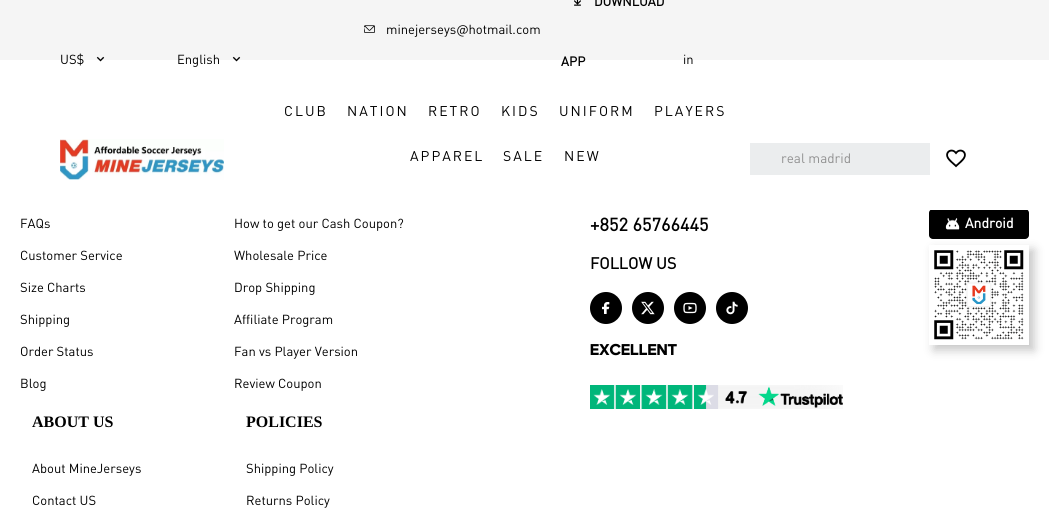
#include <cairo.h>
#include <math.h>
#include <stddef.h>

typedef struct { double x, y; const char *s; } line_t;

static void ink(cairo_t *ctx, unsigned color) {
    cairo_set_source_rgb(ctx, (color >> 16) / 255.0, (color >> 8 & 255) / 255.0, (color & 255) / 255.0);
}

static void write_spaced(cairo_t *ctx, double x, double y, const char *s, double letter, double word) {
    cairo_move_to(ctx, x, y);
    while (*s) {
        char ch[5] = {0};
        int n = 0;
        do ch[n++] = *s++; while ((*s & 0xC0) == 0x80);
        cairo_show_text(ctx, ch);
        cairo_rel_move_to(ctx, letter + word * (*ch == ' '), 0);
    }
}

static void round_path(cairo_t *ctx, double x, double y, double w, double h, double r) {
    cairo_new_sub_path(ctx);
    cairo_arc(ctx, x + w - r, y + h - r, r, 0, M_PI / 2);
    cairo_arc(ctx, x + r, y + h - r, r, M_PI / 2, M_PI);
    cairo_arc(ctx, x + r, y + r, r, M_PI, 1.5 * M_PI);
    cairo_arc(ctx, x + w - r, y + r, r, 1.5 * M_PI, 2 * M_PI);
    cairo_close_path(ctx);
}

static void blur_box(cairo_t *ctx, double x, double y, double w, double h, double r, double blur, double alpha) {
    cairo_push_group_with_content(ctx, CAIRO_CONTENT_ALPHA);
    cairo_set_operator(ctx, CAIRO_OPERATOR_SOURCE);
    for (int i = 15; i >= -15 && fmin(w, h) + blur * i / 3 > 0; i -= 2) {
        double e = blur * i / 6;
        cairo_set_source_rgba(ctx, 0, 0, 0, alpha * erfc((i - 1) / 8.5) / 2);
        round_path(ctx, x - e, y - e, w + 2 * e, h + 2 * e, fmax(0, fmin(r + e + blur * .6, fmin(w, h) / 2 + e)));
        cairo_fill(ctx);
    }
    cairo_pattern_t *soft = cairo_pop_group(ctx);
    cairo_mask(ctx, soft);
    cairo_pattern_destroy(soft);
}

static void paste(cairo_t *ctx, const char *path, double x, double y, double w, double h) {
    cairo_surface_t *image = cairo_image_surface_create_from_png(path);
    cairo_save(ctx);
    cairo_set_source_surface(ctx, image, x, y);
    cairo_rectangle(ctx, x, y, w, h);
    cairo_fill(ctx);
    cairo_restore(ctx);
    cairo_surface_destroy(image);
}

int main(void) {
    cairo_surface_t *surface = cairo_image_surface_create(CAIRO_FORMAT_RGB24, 1049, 520);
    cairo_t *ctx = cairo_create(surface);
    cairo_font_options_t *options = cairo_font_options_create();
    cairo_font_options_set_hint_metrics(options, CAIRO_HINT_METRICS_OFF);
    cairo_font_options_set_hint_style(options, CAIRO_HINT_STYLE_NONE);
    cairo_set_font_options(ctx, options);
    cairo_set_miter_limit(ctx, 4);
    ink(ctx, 0xFFFFFF);
    cairo_paint(ctx);
    ink(ctx, 0x000000);
    round_path(ctx, 929, 209, 100, 30, 4);
    cairo_fill(ctx);
    ink(ctx, 0xFFFFFF);
    cairo_rectangle(ctx, 930, 209, 98, 1);
    cairo_fill(ctx);
    ink(ctx, 0xF5F5F5);
    cairo_rectangle(ctx, 0, 0, 1049, 60);
    cairo_fill(ctx);
    paste(ctx, "media/1.png", 364, 25, 11, 8);
    cairo_select_font_face(ctx, "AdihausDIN", CAIRO_FONT_SLANT_NORMAL, CAIRO_FONT_WEIGHT_NORMAL);
    cairo_set_font_size(ctx, 13);
    ink(ctx, 0x000000);
    cairo_move_to(ctx, 386, 34);
    cairo_show_text(ctx, "minejerseys@hotmail.com");
    paste(ctx, "media/2.png", 574, 0, 7, 6);
    cairo_select_font_face(ctx, "AdihausDIN", CAIRO_FONT_SLANT_NORMAL, CAIRO_FONT_WEIGHT_BOLD);
    cairo_move_to(ctx, 594, 6);
    cairo_show_text(ctx, "DOWNLOAD");
    cairo_move_to(ctx, 561, 66);
    cairo_show_text(ctx, "APP");
    cairo_select_font_face(ctx, "AdihausDIN", CAIRO_FONT_SLANT_NORMAL, CAIRO_FONT_WEIGHT_NORMAL);
    cairo_move_to(ctx, 60, 64);
    cairo_show_text(ctx, "US$");
    paste(ctx, "media/3.png", 96, 56, 9, 6);
    cairo_move_to(ctx, 177, 64);
    cairo_show_text(ctx, "English");
    paste(ctx, "media/3.png", 232, 56, 9, 6);
    cairo_move_to(ctx, 683, 64);
    cairo_show_text(ctx, "in");
    paste(ctx, "media/4.png", 60, 139, 164, 41);
    cairo_set_font_size(ctx, 14);
    {
        static const line_t items[] = {
            {284, 116, "CLUB"},
            {347, 116, "NATION"},
            {428, 116, "RETRO"},
            {501, 116, "KIDS"},
            {559, 116, "UNIFORM"},
            {654, 116, "PLAYERS"},
            {410, 161, "APPAREL"},
            {503, 161, "SALE"},
            {564, 161, "NEW"},
        };
        for (size_t i = 0; i < sizeof items / sizeof *items; i++) {
            write_spaced(ctx, items[i].x, items[i].y, items[i].s, 2, 0);
        }
    }
    ink(ctx, 0xEBEDEE);
    cairo_rectangle(ctx, 750, 143, 180, 32);
    cairo_fill(ctx);
    cairo_set_font_size(ctx, 13.5);
    ink(ctx, 0x909090);
    cairo_move_to(ctx, 781, 163);
    cairo_show_text(ctx, "real madrid");
    paste(ctx, "media/5.png", 946, 149, 20, 19);
    cairo_set_font_size(ctx, 13);
    ink(ctx, 0x000000);
    {
        static const line_t items[] = {
            {20, 228, "FAQs"},
            {20, 260, "Customer Service"},
            {20, 292, "Size Charts"},
            {20, 324, "Shipping"},
            {20, 356, "Order Status"},
            {20, 388, "Blog"},
            {234, 228, "How to get our Cash Coupon?"},
            {234, 260, "Wholesale Price"},
            {234, 292, "Drop Shipping"},
            {234, 324, "Affiliate Program"},
            {234, 356, "Fan vs Player Version"},
            {234, 388, "Review Coupon"},
        };
        for (size_t i = 0; i < sizeof items / sizeof *items; i++) {
            cairo_move_to(ctx, items[i].x, items[i].y);
            cairo_show_text(ctx, items[i].s);
        }
    }
    cairo_select_font_face(ctx, "Liberation Serif", CAIRO_FONT_SLANT_NORMAL, CAIRO_FONT_WEIGHT_BOLD);
    cairo_set_font_size(ctx, 16);
    cairo_move_to(ctx, 32, 427);
    cairo_show_text(ctx, "ABOUT US");
    cairo_select_font_face(ctx, "AdihausDIN", CAIRO_FONT_SLANT_NORMAL, CAIRO_FONT_WEIGHT_NORMAL);
    cairo_set_font_size(ctx, 13);
    cairo_move_to(ctx, 32, 473);
    cairo_show_text(ctx, "About MineJerseys");
    cairo_move_to(ctx, 32, 505);
    cairo_show_text(ctx, "Contact US");
    cairo_select_font_face(ctx, "Liberation Serif", CAIRO_FONT_SLANT_NORMAL, CAIRO_FONT_WEIGHT_BOLD);
    cairo_set_font_size(ctx, 16);
    cairo_move_to(ctx, 246, 427);
    cairo_show_text(ctx, "POLICIES");
    cairo_select_font_face(ctx, "AdihausDIN", CAIRO_FONT_SLANT_NORMAL, CAIRO_FONT_WEIGHT_NORMAL);
    cairo_set_font_size(ctx, 13);
    cairo_move_to(ctx, 246, 473);
    cairo_show_text(ctx, "Shipping Policy");
    cairo_move_to(ctx, 246, 505);
    cairo_show_text(ctx, "Returns Policy");
    cairo_select_font_face(ctx, "AdihausDIN", CAIRO_FONT_SLANT_NORMAL, CAIRO_FONT_WEIGHT_BOLD);
    cairo_set_font_size(ctx, 18);
    cairo_move_to(ctx, 590, 231);
    cairo_show_text(ctx, "+852 65766445");
    cairo_set_font_size(ctx, 16);
    cairo_move_to(ctx, 590, 269);
    cairo_show_text(ctx, "FOLLOW US");
    cairo_new_path(ctx);
    cairo_arc(ctx, 606, 308, 16, 0, 2 * M_PI);
    cairo_fill(ctx);
    paste(ctx, "media/6.png", 602, 302, 8, 12);
    cairo_arc(ctx, 648, 308, 16, 0, 2 * M_PI);
    cairo_fill(ctx);
    paste(ctx, "media/7.png", 641, 301, 14, 14);
    cairo_arc(ctx, 690, 308, 16, 0, 2 * M_PI);
    cairo_fill(ctx);
    paste(ctx, "media/8.png", 683, 302, 14, 12);
    cairo_arc(ctx, 732, 308, 16, 0, 2 * M_PI);
    cairo_fill(ctx);
    paste(ctx, "media/9.png", 726, 301, 12, 14);
    paste(ctx, "media/10.png", 590, 343, 87, 13);
    paste(ctx, "media/11.png", 590, 385, 253, 24);
    paste(ctx, "media/12.png", 613, 385, 230, 24);
    paste(ctx, "media/13.png", 945, 218, 15, 12);
    cairo_set_font_size(ctx, 14);
    ink(ctx, 0xFFFFFF);
    cairo_move_to(ctx, 965, 228);
    cairo_show_text(ctx, "Android");
    cairo_save(ctx);
    cairo_set_fill_rule(ctx, CAIRO_FILL_RULE_EVEN_ODD);
    cairo_new_path(ctx);
    cairo_move_to(ctx, 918, 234);
    cairo_line_to(ctx, 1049, 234);
    cairo_line_to(ctx, 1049, 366);
    cairo_line_to(ctx, 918, 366);
    cairo_close_path(ctx);
    cairo_move_to(ctx, 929, 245);
    cairo_line_to(ctx, 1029, 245);
    cairo_line_to(ctx, 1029, 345);
    cairo_line_to(ctx, 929, 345);
    cairo_close_path(ctx);
    cairo_clip(ctx);
    ink(ctx, 0xC5C5C5);
    blur_box(ctx, 934, 250, 100, 100, 0, 5, 1);
    cairo_restore(ctx);
    paste(ctx, "media/14.png", 934, 250, 90, 90);
    cairo_surface_write_to_png(surface, "image.png");
    cairo_font_options_destroy(options);
    cairo_destroy(ctx);
    cairo_surface_destroy(surface);
    return 0;
}
